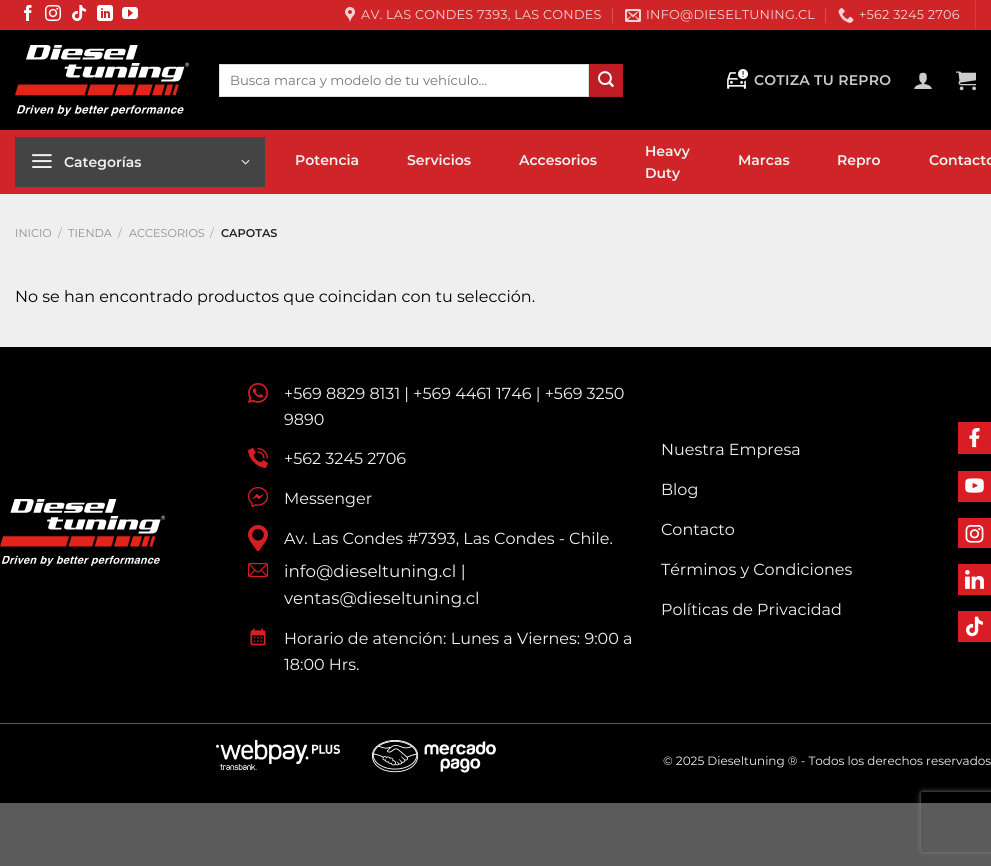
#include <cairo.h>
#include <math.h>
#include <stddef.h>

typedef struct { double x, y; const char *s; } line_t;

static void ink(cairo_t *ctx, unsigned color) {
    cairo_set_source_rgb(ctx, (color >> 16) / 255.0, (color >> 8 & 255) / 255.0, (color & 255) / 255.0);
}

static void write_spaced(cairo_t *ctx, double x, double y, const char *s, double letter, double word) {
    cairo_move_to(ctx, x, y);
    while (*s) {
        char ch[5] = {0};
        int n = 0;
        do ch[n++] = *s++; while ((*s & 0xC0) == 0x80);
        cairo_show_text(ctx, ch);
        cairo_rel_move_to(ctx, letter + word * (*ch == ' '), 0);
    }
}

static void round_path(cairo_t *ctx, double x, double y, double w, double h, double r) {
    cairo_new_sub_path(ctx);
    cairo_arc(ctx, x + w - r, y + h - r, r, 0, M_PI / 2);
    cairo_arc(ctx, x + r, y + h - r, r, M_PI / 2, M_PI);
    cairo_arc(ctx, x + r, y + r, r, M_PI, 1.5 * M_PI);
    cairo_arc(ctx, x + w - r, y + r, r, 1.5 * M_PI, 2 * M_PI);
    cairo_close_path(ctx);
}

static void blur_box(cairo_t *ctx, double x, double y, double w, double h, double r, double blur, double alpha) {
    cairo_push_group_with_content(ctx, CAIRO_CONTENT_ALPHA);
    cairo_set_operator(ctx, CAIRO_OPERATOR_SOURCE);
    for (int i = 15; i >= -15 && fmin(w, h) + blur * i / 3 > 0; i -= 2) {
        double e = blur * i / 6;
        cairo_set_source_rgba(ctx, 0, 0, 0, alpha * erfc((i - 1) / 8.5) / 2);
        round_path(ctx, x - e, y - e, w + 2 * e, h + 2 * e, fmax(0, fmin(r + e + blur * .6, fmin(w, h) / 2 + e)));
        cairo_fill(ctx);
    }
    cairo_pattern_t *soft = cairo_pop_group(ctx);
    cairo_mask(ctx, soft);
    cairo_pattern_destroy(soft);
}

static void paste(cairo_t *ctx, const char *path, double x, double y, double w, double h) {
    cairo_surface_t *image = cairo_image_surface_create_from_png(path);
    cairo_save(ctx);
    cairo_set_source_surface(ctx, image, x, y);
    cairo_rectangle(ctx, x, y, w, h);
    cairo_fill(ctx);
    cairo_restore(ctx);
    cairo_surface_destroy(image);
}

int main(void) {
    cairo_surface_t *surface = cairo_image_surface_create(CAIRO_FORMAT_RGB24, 991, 866);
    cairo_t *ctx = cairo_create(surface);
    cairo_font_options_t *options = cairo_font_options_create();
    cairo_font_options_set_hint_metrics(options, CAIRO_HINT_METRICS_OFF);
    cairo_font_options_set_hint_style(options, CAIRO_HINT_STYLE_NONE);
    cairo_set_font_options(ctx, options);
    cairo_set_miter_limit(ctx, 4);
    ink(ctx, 0x5B5B5B);
    cairo_paint(ctx);
    ink(ctx, 0xEFEFEF);
    cairo_rectangle(ctx, 0, 194, 991, 153);
    cairo_fill(ctx);
    ink(ctx, 0xCF2529);
    cairo_rectangle(ctx, 0, 0, 991, 30);
    cairo_fill(ctx);
    paste(ctx, "media/1.png", 24, 5, 8, 16);
    paste(ctx, "media/2.png", 45, 5, 16, 16);
    paste(ctx, "media/3.png", 72, 5, 14, 16);
    paste(ctx, "media/4.png", 97, 5, 16, 16);
    paste(ctx, "media/5.png", 122, 7, 16, 12);
    paste(ctx, "media/6.png", 345, 7, 10, 16);
    cairo_select_font_face(ctx, "Montserrat", CAIRO_FONT_SLANT_NORMAL, CAIRO_FONT_WEIGHT_NORMAL);
    cairo_set_font_size(ctx, 12.75);
    ink(ctx, 0xF5D3D4);
    write_spaced(ctx, 361, 19, "AV. LAS CONDES 7393, LAS CONDES", 0.25, 0);
    ink(ctx, 0xD95154);
    cairo_rectangle(ctx, 612, 8, 1, 15);
    cairo_fill(ctx);
    paste(ctx, "media/7.png", 625, 9, 16, 13);
    ink(ctx, 0xF5D3D4);
    write_spaced(ctx, 646, 19, "INFO@DIESELTUNING.CL", 0.25, 0);
    ink(ctx, 0xD95154);
    cairo_rectangle(ctx, 825, 8, 1, 15);
    cairo_fill(ctx);
    paste(ctx, "media/8.png", 838, 8, 16, 15);
    ink(ctx, 0xF5D3D4);
    write_spaced(ctx, 859, 19, "+562 3245 2706", 0.25, 0);
    ink(ctx, 0xD43B3E);
    cairo_rectangle(ctx, 975, 0, 1, 30);
    cairo_fill(ctx);
    ink(ctx, 0x000000);
    cairo_rectangle(ctx, 0, 30, 991, 100);
    cairo_fill(ctx);
    paste(ctx, "media/9.png", 15, 45, 174, 71);
    ink(ctx, 0xFFFFFF);
    cairo_rectangle(ctx, 219.5, 64.5, 369, 32);
    cairo_fill_preserve(ctx);
    ink(ctx, 0xDDDDDD);
    cairo_set_line_width(ctx, 1);
    cairo_stroke(ctx);
    cairo_set_font_size(ctx, 13.2);
    ink(ctx, 0x757575);
    cairo_move_to(ctx, 230, 85);
    cairo_show_text(ctx, "Busca marca y modelo de tu vehículo...");
    ink(ctx, 0xC01C25);
    cairo_rectangle(ctx, 589.5, 64.5, 33, 32);
    cairo_fill_preserve(ctx);
    ink(ctx, 0xB61B23);
    cairo_stroke(ctx);
    paste(ctx, "media/10.png", 598, 71, 16, 16);
    paste(ctx, "media/11.png", 727, 69, 21, 20);
    cairo_select_font_face(ctx, "Montserrat SemiBold", CAIRO_FONT_SLANT_NORMAL, CAIRO_FONT_WEIGHT_NORMAL);
    cairo_set_font_size(ctx, 14);
    ink(ctx, 0xCCCCCC);
    write_spaced(ctx, 754, 85, "COTIZA TU REPRO", 0.25, 0);
    paste(ctx, "media/12.png", 914, 72, 18, 17);
    paste(ctx, "media/13.png", 956, 71, 20, 20);
    ink(ctx, 0xCF2529);
    cairo_rectangle(ctx, 0, 130, 991, 64);
    cairo_fill(ctx);
    ink(ctx, 0x444444);
    cairo_rectangle(ctx, 15, 137, 250, 50);
    cairo_fill(ctx);
    paste(ctx, "media/14.png", 32, 154, 20, 14);
    ink(ctx, 0xF1F1F1);
    cairo_move_to(ctx, 64, 167);
    cairo_show_text(ctx, "Categorías");
    paste(ctx, "media/15.png", 241, 160, 9, 5);
    {
        static const line_t items[] = {
            {295, 165, "Potencia"},
            {407, 165, "Servicios"},
            {519, 165, "Accesorios"},
            {645, 156, "Heavy"},
            {645, 178, "Duty"},
            {738, 165, "Marcas"},
            {837, 165, "Repro"},
            {929, 165, "Contacto"},
        };
        for (size_t i = 0; i < sizeof items / sizeof *items; i++) {
            cairo_move_to(ctx, items[i].x, items[i].y);
            cairo_show_text(ctx, items[i].s);
        }
    }
    cairo_select_font_face(ctx, "Montserrat", CAIRO_FONT_SLANT_NORMAL, CAIRO_FONT_WEIGHT_NORMAL);
    cairo_set_font_size(ctx, 11.25);
    ink(ctx, 0x8F8F8F);
    cairo_move_to(ctx, 15, 237);
    cairo_show_text(ctx, "INICIO");
    ink(ctx, 0xA7A7A7);
    cairo_move_to(ctx, 58, 237);
    cairo_show_text(ctx, "/");
    ink(ctx, 0x8F8F8F);
    cairo_move_to(ctx, 68, 237);
    cairo_show_text(ctx, "TIENDA");
    ink(ctx, 0xA7A7A7);
    cairo_move_to(ctx, 118, 237);
    cairo_show_text(ctx, "/");
    ink(ctx, 0x8F8F8F);
    cairo_move_to(ctx, 129, 237);
    cairo_show_text(ctx, "ACCESORIOS");
    ink(ctx, 0xA7A7A7);
    cairo_move_to(ctx, 210, 237);
    cairo_show_text(ctx, "/");
    cairo_select_font_face(ctx, "Montserrat SemiBold", CAIRO_FONT_SLANT_NORMAL, CAIRO_FONT_WEIGHT_NORMAL);
    ink(ctx, 0x222222);
    cairo_move_to(ctx, 221, 237);
    cairo_show_text(ctx, "CAPOTAS");
    cairo_select_font_face(ctx, "Montserrat", CAIRO_FONT_SLANT_NORMAL, CAIRO_FONT_WEIGHT_NORMAL);
    cairo_set_font_size(ctx, 16);
    ink(ctx, 0x000000);
    cairo_move_to(ctx, 15, 302);
    cairo_show_text(ctx, "No se han encontrado productos que coincidan con tu selección.");
    cairo_rectangle(ctx, 0, 347, 991, 456);
    cairo_fill(ctx);
    paste(ctx, "media/16.png", 0, 499, 165, 67);
    paste(ctx, "media/17.png", 248, 383, 20, 20);
    ink(ctx, 0xF1F1F1);
    cairo_move_to(ctx, 284, 399);
    cairo_show_text(ctx, "+569 8829 8131 | +569 4461 1746 | +569 3250");
    cairo_move_to(ctx, 284, 425);
    cairo_show_text(ctx, "9890");
    paste(ctx, "media/18.png", 248, 448, 20, 20);
    cairo_move_to(ctx, 284, 464);
    cairo_show_text(ctx, "+562 3245 2706");
    paste(ctx, "media/19.png", 248, 487, 20, 21);
    cairo_move_to(ctx, 284, 504);
    cairo_show_text(ctx, "Messenger");
    paste(ctx, "media/20.png", 248, 525, 20, 26);
    cairo_move_to(ctx, 284, 544);
    cairo_show_text(ctx, "Av. Las Condes #7393, Las Condes - Chile.");
    paste(ctx, "media/21.png", 248, 563, 20, 14);
    cairo_set_font_size(ctx, 16.75);
    cairo_move_to(ctx, 284, 577);
    cairo_show_text(ctx, "info@dieseltuning.cl |");
    cairo_move_to(ctx, 284, 604);
    cairo_show_text(ctx, "ventas@dieseltuning.cl");
    paste(ctx, "media/22.png", 250, 628, 16, 18);
    cairo_set_font_size(ctx, 16);
    {
        static const line_t items[] = {
            {284, 644, "Horario de atención: Lunes a Viernes: 9:00 a"},
            {284, 670, "18:00 Hrs."},
            {661, 455, "Nuestra Empresa"},
            {661, 495, "Blog"},
            {661, 535, "Contacto"},
            {661, 575, "Términos y Condiciones"},
            {661, 615, "Políticas de Privacidad"},
        };
        for (size_t i = 0; i < sizeof items / sizeof *items; i++) {
            cairo_move_to(ctx, items[i].x, items[i].y);
            cairo_show_text(ctx, items[i].s);
        }
    }
    paste(ctx, "media/23.png", 958, 422, 33, 32);
    paste(ctx, "media/24.png", 958, 471, 33, 31);
    paste(ctx, "media/25.png", 958, 518, 33, 30);
    paste(ctx, "media/26.png", 958, 564, 33, 31);
    paste(ctx, "media/27.png", 958, 611, 33, 31);
    ink(ctx, 0xCF2529);
    cairo_rectangle(ctx, 0, 723, 991, 1);
    cairo_fill(ctx);
    paste(ctx, "media/28.png", 216, 740, 124, 30);
    paste(ctx, "media/29.png", 372, 740, 124, 33);
    cairo_set_font_size(ctx, 12);
    ink(ctx, 0xF1F1F1);
    cairo_move_to(ctx, 663, 765);
    cairo_show_text(ctx, "© 2025 Dieseltuning ® - Todos los derechos reservados");
    cairo_save(ctx);
    cairo_set_fill_rule(ctx, CAIRO_FILL_RULE_EVEN_ODD);
    cairo_new_path(ctx);
    cairo_move_to(ctx, 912, 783);
    cairo_line_to(ctx, 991, 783);
    cairo_line_to(ctx, 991, 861);
    cairo_line_to(ctx, 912, 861);
    cairo_close_path(ctx);
    cairo_move_to(ctx, 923, 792);
    cairo_line_to(ctx, 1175, 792);
    cairo_curve_to(ctx, 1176, 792, 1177, 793, 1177, 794);
    cairo_line_to(ctx, 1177, 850);
    cairo_curve_to(ctx, 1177, 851, 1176, 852, 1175, 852);
    cairo_line_to(ctx, 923, 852);
    cairo_curve_to(ctx, 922, 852, 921, 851, 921, 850);
    cairo_line_to(ctx, 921, 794);
    cairo_curve_to(ctx, 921, 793, 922, 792, 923, 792);
    cairo_close_path(ctx);
    cairo_clip(ctx);
    ink(ctx, 0x808080);
    blur_box(ctx, 921, 792, 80, 60, 2, 2.5, 1);
    cairo_restore(ctx);
    cairo_surface_write_to_png(surface, "image.png");
    cairo_font_options_destroy(options);
    cairo_destroy(ctx);
    cairo_surface_destroy(surface);
    return 0;
}
